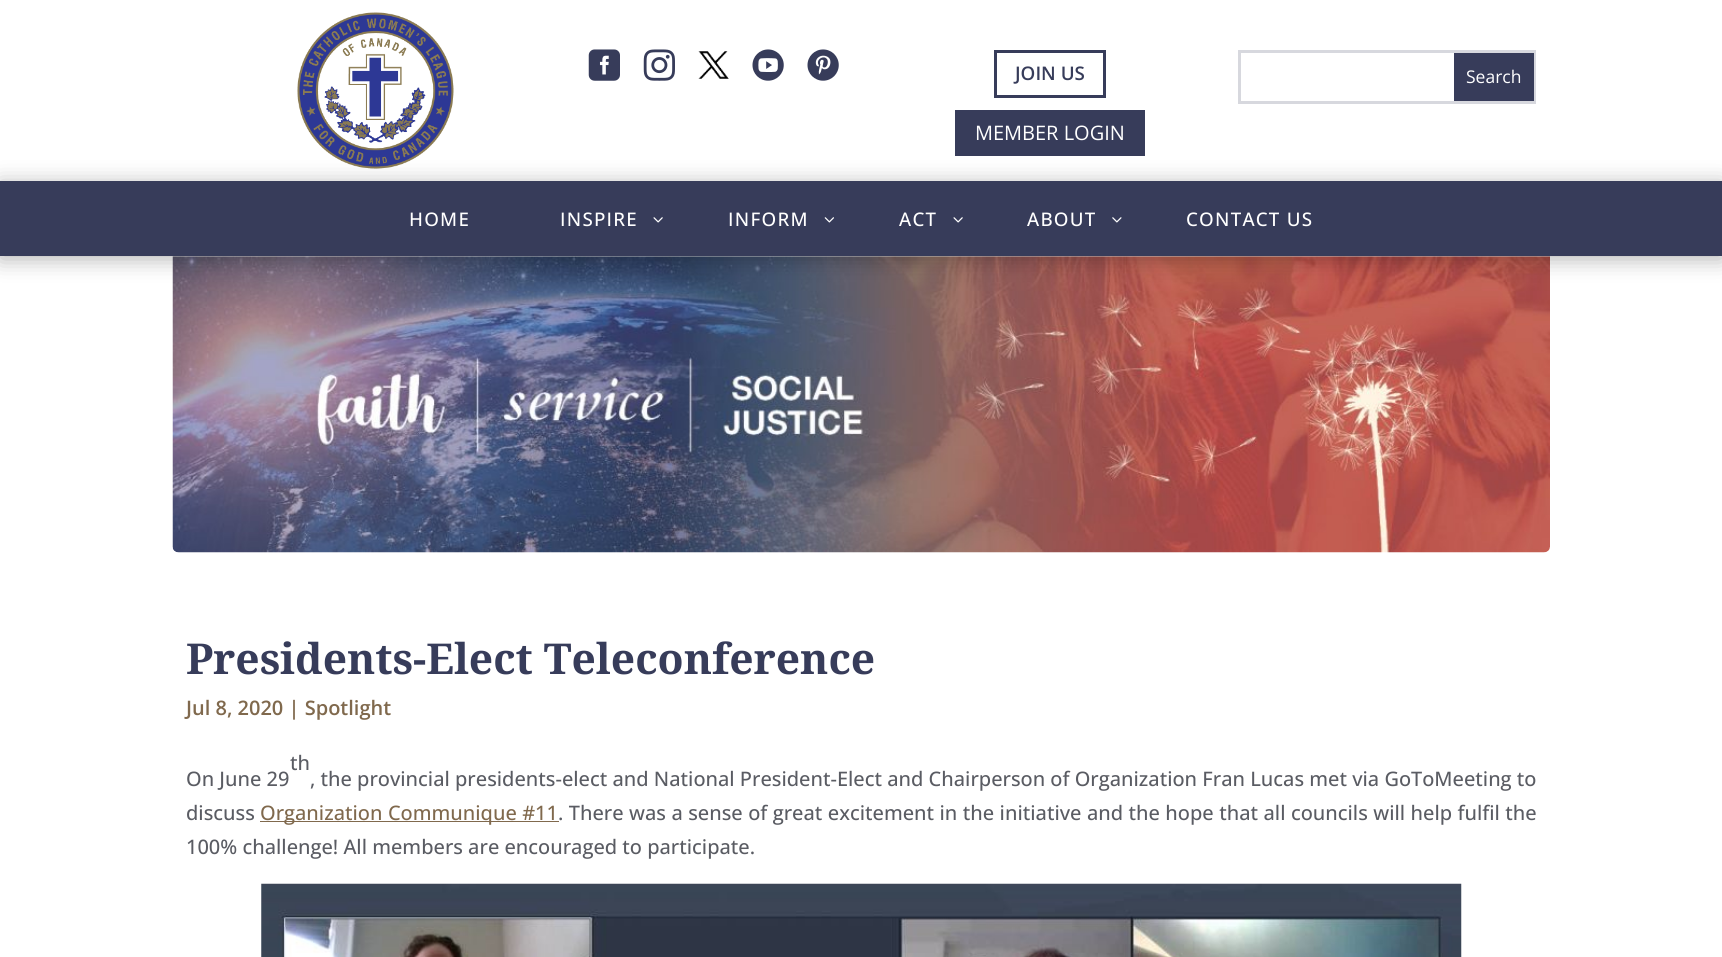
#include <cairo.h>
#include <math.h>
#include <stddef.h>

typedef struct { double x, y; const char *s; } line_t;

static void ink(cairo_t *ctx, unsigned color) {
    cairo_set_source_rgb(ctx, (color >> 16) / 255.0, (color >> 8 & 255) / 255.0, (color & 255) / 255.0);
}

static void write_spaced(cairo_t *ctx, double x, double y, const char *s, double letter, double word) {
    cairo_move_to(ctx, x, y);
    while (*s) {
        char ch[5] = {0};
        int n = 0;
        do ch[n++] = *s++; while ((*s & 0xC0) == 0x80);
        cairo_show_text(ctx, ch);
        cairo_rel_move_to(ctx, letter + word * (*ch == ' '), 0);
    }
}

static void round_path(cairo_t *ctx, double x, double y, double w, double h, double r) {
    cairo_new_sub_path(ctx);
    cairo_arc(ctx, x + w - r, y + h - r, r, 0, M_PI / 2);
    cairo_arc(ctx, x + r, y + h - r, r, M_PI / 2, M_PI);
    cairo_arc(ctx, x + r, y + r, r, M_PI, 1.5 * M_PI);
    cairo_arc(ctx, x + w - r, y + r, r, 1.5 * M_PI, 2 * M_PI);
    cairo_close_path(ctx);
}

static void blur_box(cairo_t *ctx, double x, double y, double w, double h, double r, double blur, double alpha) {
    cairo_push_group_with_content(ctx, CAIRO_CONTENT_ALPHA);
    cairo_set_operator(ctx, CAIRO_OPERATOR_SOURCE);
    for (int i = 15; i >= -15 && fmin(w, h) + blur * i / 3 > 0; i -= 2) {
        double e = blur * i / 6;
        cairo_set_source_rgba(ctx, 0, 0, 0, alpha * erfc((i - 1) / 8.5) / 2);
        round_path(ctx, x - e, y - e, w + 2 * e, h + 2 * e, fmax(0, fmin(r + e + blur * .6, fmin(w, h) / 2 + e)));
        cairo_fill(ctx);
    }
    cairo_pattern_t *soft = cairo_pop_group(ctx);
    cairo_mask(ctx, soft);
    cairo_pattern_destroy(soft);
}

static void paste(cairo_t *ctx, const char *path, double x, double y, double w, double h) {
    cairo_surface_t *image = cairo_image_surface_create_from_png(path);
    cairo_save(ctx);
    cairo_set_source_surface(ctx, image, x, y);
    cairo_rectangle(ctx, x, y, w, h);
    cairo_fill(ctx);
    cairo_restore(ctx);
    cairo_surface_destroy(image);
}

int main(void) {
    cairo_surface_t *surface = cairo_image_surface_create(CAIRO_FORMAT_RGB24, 1722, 957);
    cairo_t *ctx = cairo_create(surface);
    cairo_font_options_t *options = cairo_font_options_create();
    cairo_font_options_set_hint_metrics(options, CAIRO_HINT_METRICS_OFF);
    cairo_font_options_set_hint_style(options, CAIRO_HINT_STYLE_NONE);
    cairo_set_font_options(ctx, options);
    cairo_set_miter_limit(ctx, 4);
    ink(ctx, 0xFFFFFF);
    cairo_paint(ctx);
    paste(ctx, "media/1.png", 297, 12, 157, 157);
    paste(ctx, "media/2.png", 588, 49, 32, 32);
    paste(ctx, "media/3.png", 643, 49, 32, 32);
    paste(ctx, "media/4.png", 698, 51, 31, 28);
    paste(ctx, "media/5.png", 752, 49, 32, 32);
    paste(ctx, "media/6.png", 807, 49, 32, 32);
    cairo_rectangle(ctx, 995.5, 51.5, 109, 45);
    ink(ctx, 0x373C5A);
    cairo_set_line_width(ctx, 3);
    cairo_stroke(ctx);
    cairo_select_font_face(ctx, "Open Sans SemiBold", CAIRO_FONT_SLANT_NORMAL, CAIRO_FONT_WEIGHT_NORMAL);
    cairo_set_font_size(ctx, 18.75);
    cairo_move_to(ctx, 1015, 80);
    cairo_show_text(ctx, "JOIN US");
    cairo_rectangle(ctx, 955, 110, 190, 46);
    cairo_fill(ctx);
    cairo_select_font_face(ctx, "Open Sans", CAIRO_FONT_SLANT_NORMAL, CAIRO_FONT_WEIGHT_NORMAL);
    cairo_set_font_size(ctx, 20);
    ink(ctx, 0xFFFFFF);
    cairo_move_to(ctx, 975, 140);
    cairo_show_text(ctx, "MEMBER LOGIN");
    cairo_rectangle(ctx, 1239.5, 51.5, 295, 51);
    ink(ctx, 0xD7D8DE);
    cairo_stroke(ctx);
    ink(ctx, 0x373C5A);
    cairo_rectangle(ctx, 1454, 53, 80, 48);
    cairo_fill(ctx);
    cairo_set_font_size(ctx, 17.5);
    ink(ctx, 0xFFFFFF);
    cairo_move_to(ctx, 1466, 83);
    cairo_show_text(ctx, "Search");
    paste(ctx, "media/10.png", 172, 256, 1378, 297);
    ink(ctx, 0x000000);
    blur_box(ctx, 0, 184, 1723, 75, 0, 11, 0.3);
    ink(ctx, 0x373C5A);
    cairo_rectangle(ctx, 0, 181, 1722, 75);
    cairo_fill(ctx);
    cairo_select_font_face(ctx, "Open Sans Medium", CAIRO_FONT_SLANT_NORMAL, CAIRO_FONT_WEIGHT_NORMAL);
    cairo_set_font_size(ctx, 18.75);
    ink(ctx, 0xFFFFFF);
    write_spaced(ctx, 409, 226, "HOME", 1.25, 0);
    write_spaced(ctx, 560, 226, "INSPIRE", 1.25, 0);
    paste(ctx, "media/7.png", 653, 217, 10, 6);
    write_spaced(ctx, 728, 226, "INFORM", 1.25, 0);
    paste(ctx, "media/8.png", 824, 217, 10, 6);
    write_spaced(ctx, 899, 226, "ACT", 1.25, 0);
    paste(ctx, "media/7.png", 953, 217, 10, 6);
    write_spaced(ctx, 1027, 226, "ABOUT", 1.25, 0);
    paste(ctx, "media/9.png", 1112, 217, 10, 6);
    write_spaced(ctx, 1186, 226, "CONTACT US", 1.25, 0);
    cairo_select_font_face(ctx, "Noto Serif", CAIRO_FONT_SLANT_NORMAL, CAIRO_FONT_WEIGHT_BOLD);
    cairo_set_font_size(ctx, 42.5);
    ink(ctx, 0x373C5A);
    cairo_move_to(ctx, 186, 674);
    cairo_show_text(ctx, "Presidents-Elect Teleconference");
    cairo_select_font_face(ctx, "Open Sans SemiBold", CAIRO_FONT_SLANT_NORMAL, CAIRO_FONT_WEIGHT_NORMAL);
    cairo_set_font_size(ctx, 20);
    ink(ctx, 0x80694D);
    cairo_move_to(ctx, 186, 715);
    cairo_show_text(ctx, "Jul 8, 2020 | Spotlight");
    cairo_select_font_face(ctx, "Open Sans Medium", CAIRO_FONT_SLANT_NORMAL, CAIRO_FONT_WEIGHT_NORMAL);
    ink(ctx, 0x5A5C63);
    {
        static const line_t items[] = {
            {290, 770, "th"},
            {186, 786, "On June 29"},
            {310, 786, ", the provincial presidents-elect and National President-Elect and Chairperson of Organization Fran Lucas met via GoToMeeting to"},
            {186, 820, "discuss"},
        };
        for (size_t i = 0; i < sizeof items / sizeof *items; i++) {
            cairo_move_to(ctx, items[i].x, items[i].y);
            cairo_show_text(ctx, items[i].s);
        }
    }
    ink(ctx, 0x80694D);
    cairo_rectangle(ctx, 260, 821, 299, 1);
    cairo_fill(ctx);
    write_spaced(ctx, 260, 820, "Organization Communique #11", 0, 0.25);
    ink(ctx, 0x5A5C63);
    write_spaced(ctx, 558, 820, ". There was a sense of great excitement in the initiative and the hope that all councils will help fulfil the", 0, 0.25);
    cairo_move_to(ctx, 186, 854);
    cairo_show_text(ctx, "100% challenge! All members are encouraged to participate.");
    paste(ctx, "media/11.png", 261, 883, 1201, 74);
    cairo_surface_write_to_png(surface, "image.png");
    cairo_font_options_destroy(options);
    cairo_destroy(ctx);
    cairo_surface_destroy(surface);
    return 0;
}
